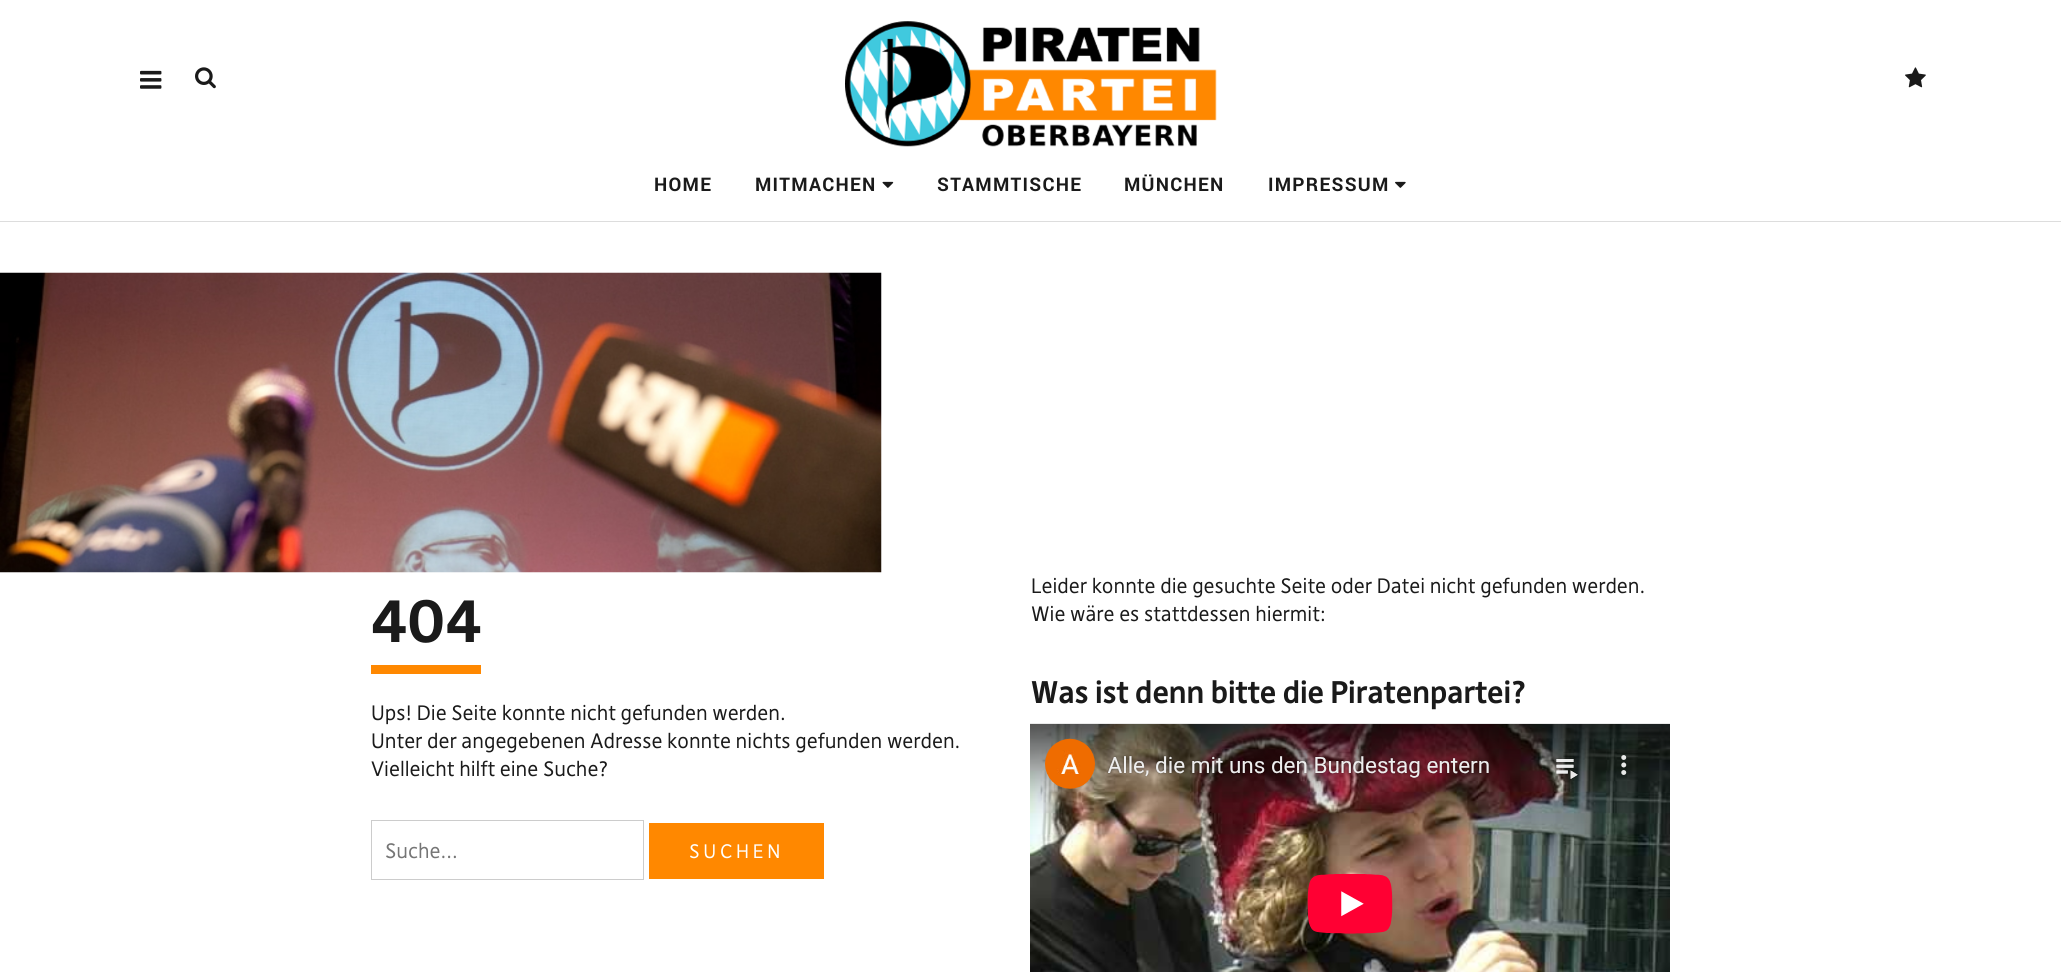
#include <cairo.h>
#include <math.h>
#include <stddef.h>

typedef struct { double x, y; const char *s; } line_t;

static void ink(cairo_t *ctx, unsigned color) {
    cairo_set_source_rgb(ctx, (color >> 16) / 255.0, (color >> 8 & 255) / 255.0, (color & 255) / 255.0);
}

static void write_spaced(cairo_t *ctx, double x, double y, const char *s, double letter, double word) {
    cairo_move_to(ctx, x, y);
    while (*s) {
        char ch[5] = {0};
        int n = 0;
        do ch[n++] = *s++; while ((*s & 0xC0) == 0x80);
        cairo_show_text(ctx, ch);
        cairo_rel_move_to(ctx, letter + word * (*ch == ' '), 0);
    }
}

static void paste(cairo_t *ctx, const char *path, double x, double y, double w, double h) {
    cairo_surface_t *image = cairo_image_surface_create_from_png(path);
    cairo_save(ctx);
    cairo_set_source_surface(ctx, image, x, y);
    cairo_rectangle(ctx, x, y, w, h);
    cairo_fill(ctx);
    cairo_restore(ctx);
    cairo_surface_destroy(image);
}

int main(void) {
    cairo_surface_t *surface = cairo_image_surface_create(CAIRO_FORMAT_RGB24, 2061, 972);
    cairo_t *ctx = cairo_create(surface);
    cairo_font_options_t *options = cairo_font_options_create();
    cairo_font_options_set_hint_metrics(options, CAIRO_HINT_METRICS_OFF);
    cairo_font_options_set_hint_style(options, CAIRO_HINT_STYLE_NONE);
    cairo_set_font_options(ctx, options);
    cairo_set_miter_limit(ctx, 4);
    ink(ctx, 0xFFFFFF);
    cairo_paint(ctx);
    ink(ctx, 0xDDDDDD);
    cairo_rectangle(ctx, 0, 221, 2061, 1);
    cairo_fill(ctx);
    paste(ctx, "media/1.png", 140, 70, 22, 19);
    paste(ctx, "media/2.png", 845, 21, 372, 126);
    paste(ctx, "media/3.png", 1905, 67, 21, 21);
    paste(ctx, "media/4.png", 195, 67, 21, 22);
    cairo_select_font_face(ctx, "roboto", CAIRO_FONT_SLANT_NORMAL, CAIRO_FONT_WEIGHT_BOLD);
    cairo_set_font_size(ctx, 18.75);
    ink(ctx, 0x1A1A1A);
    write_spaced(ctx, 654, 191, "HOME", 1.25, 0);
    write_spaced(ctx, 755, 191, "MITMACHEN", 1.25, 0);
    paste(ctx, "media/5.png", 882, 181, 12, 7);
    {
        static const line_t items[] = {
            {937, 191, "STAMMTISCHE"},
            {1124, 191, "MÜNCHEN"},
            {1268, 191, "IMPRESSUM"},
        };
        for (size_t i = 0; i < sizeof items / sizeof *items; i++) {
            write_spaced(ctx, items[i].x, items[i].y, items[i].s, 1.25, 0);
        }
    }
    paste(ctx, "media/6.png", 1395, 181, 11, 7);
    paste(ctx, "media/7.png", 0, 272, 882, 301);
    ink(ctx, 0xFF8800);
    cairo_rectangle(ctx, 371, 665, 110, 9);
    cairo_fill(ctx);
    cairo_select_font_face(ctx, "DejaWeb", CAIRO_FONT_SLANT_NORMAL, CAIRO_FONT_WEIGHT_BOLD);
    cairo_set_font_size(ctx, 60);
    ink(ctx, 0x1A1A1A);
    cairo_move_to(ctx, 371, 642);
    cairo_show_text(ctx, "404");
    cairo_select_font_face(ctx, "DejaWeb", CAIRO_FONT_SLANT_NORMAL, CAIRO_FONT_WEIGHT_NORMAL);
    cairo_set_font_size(ctx, 20);
    {
        static const line_t items[] = {
            {371, 720, "Ups! Die Seite konnte nicht gefunden werden."},
            {371, 748, "Unter der angegebenen Adresse konnte nichts gefunden werden."},
            {371, 776, "Vielleicht hilft eine Suche?"},
        };
        for (size_t i = 0; i < sizeof items / sizeof *items; i++) {
            cairo_move_to(ctx, items[i].x, items[i].y);
            cairo_show_text(ctx, items[i].s);
        }
    }
    cairo_rectangle(ctx, 371.5, 820.5, 272, 59);
    ink(ctx, 0xCCCCCC);
    cairo_set_line_width(ctx, 1);
    cairo_stroke(ctx);
    ink(ctx, 0x757575);
    cairo_move_to(ctx, 385, 858);
    cairo_show_text(ctx, "Suche...");
    ink(ctx, 0xFF8800);
    cairo_rectangle(ctx, 649, 823, 175, 56);
    cairo_fill(ctx);
    cairo_set_font_size(ctx, 18.75);
    ink(ctx, 0xFFFFFF);
    write_spaced(ctx, 689, 858, "SUCHEN", 3.75, 0);
    cairo_set_font_size(ctx, 20);
    ink(ctx, 0x1A1A1A);
    cairo_move_to(ctx, 1031, 593);
    cairo_show_text(ctx, "Leider konnte die gesuchte Seite oder Datei nicht gefunden werden.");
    cairo_move_to(ctx, 1031, 621);
    cairo_show_text(ctx, "Wie wäre es stattdessen hiermit:");
    cairo_select_font_face(ctx, "DejaWeb", CAIRO_FONT_SLANT_NORMAL, CAIRO_FONT_WEIGHT_BOLD);
    cairo_set_font_size(ctx, 30);
    cairo_move_to(ctx, 1031, 703);
    cairo_show_text(ctx, "Was ist denn bitte die Piratenpartei?");
    paste(ctx, "media/8.png", 1030, 723, 640, 249);
    cairo_surface_write_to_png(surface, "image.png");
    cairo_font_options_destroy(options);
    cairo_destroy(ctx);
    cairo_surface_destroy(surface);
    return 0;
}
